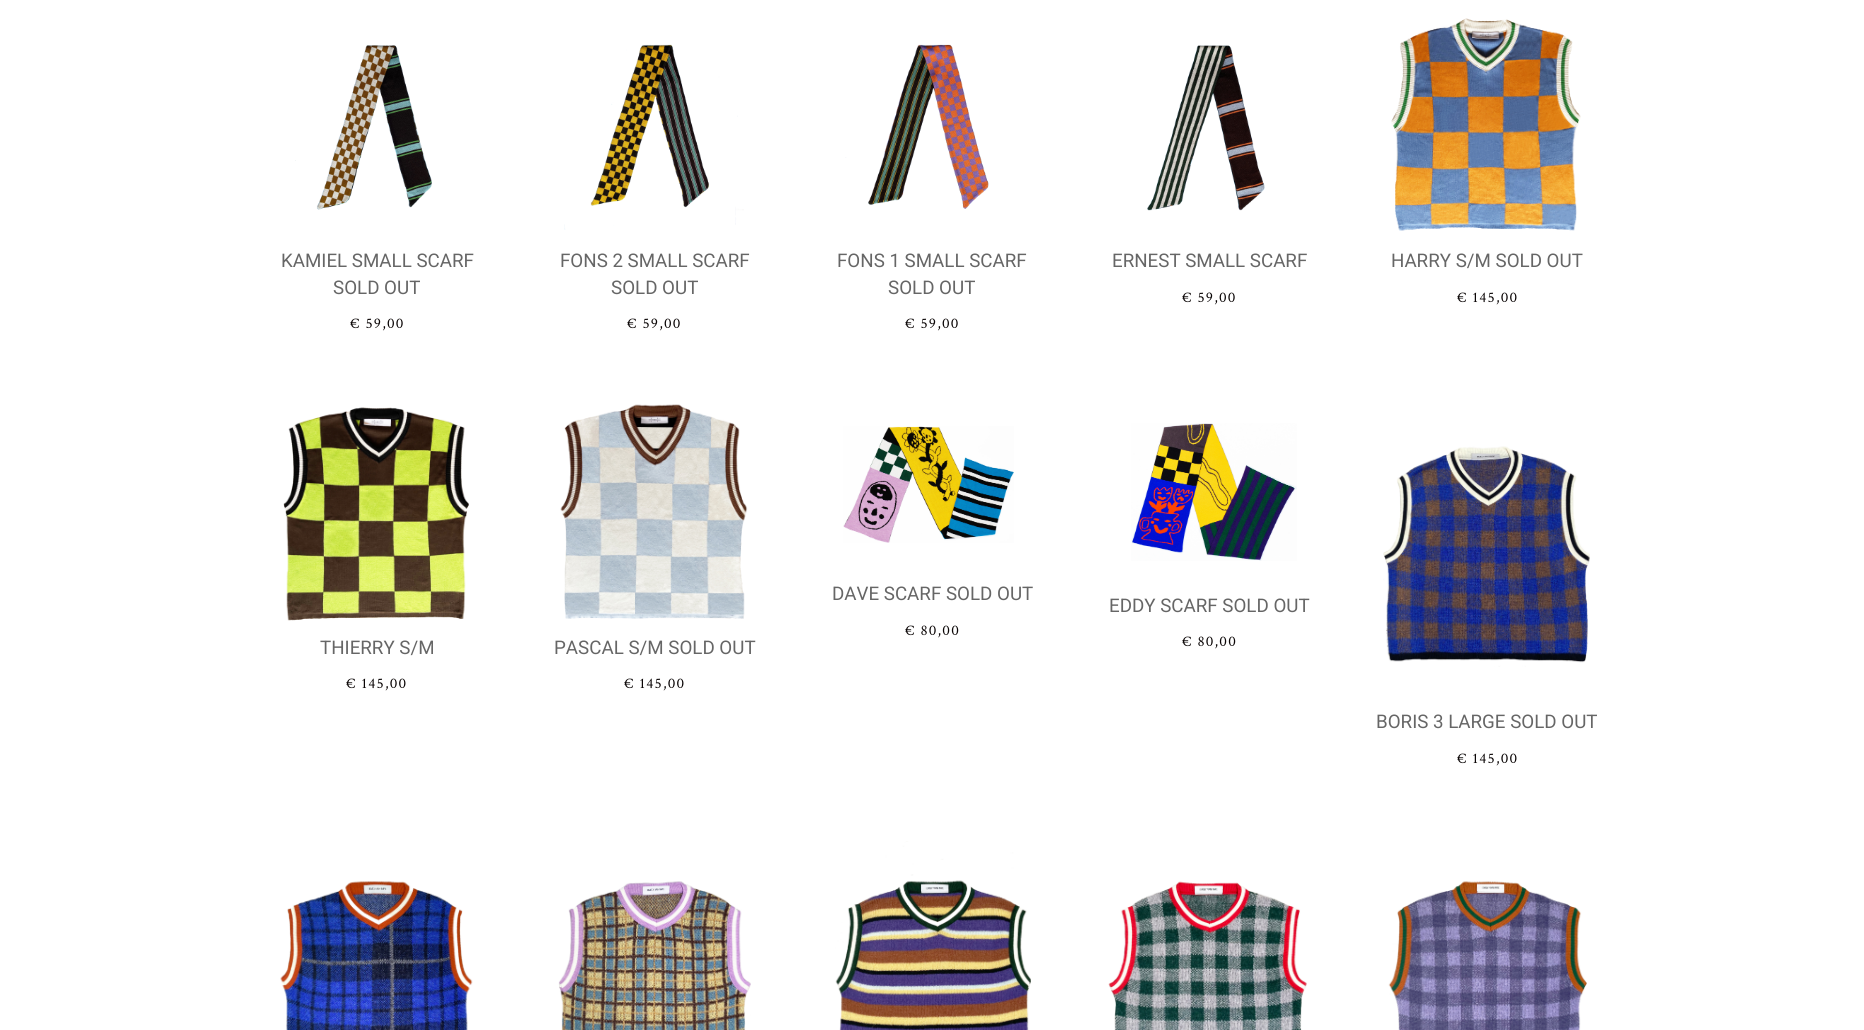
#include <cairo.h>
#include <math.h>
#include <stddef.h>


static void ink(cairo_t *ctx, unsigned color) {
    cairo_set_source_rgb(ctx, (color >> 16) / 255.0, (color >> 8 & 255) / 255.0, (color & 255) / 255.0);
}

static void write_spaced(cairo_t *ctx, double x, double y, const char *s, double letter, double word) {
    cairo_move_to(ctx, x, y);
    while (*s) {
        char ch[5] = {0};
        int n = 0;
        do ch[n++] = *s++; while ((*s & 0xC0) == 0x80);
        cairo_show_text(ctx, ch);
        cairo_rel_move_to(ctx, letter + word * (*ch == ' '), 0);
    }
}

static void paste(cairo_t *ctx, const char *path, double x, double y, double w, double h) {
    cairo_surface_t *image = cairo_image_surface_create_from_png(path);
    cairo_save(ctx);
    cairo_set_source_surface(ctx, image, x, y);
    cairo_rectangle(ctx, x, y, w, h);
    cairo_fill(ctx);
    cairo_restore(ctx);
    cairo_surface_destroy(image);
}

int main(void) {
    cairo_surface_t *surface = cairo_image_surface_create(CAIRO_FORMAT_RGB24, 1864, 1030);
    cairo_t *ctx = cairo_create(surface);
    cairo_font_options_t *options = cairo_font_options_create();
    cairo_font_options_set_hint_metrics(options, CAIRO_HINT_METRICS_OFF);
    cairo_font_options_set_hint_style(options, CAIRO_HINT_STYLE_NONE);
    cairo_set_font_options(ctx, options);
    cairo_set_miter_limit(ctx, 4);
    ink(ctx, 0xFFFFFF);
    cairo_paint(ctx);
    paste(ctx, "media/1.png", 295, 45, 137, 165);
    cairo_select_font_face(ctx, "Roboto", CAIRO_FONT_SLANT_NORMAL, CAIRO_FONT_WEIGHT_NORMAL);
    cairo_set_font_size(ctx, 18.75);
    ink(ctx, 0x666666);
    cairo_move_to(ctx, 281, 267);
    cairo_show_text(ctx, "KAMIEL SMALL SCARF");
    cairo_move_to(ctx, 333, 294);
    cairo_show_text(ctx, "SOLD OUT");
    cairo_select_font_face(ctx, "Crimson Text", CAIRO_FONT_SLANT_NORMAL, CAIRO_FONT_WEIGHT_NORMAL);
    cairo_set_font_size(ctx, 15);
    ink(ctx, 0x0A0505);
    write_spaced(ctx, 350, 328, "€ 59,00", 1.25, 0);
    paste(ctx, "media/2.png", 564, 44, 180, 186);
    cairo_select_font_face(ctx, "Roboto", CAIRO_FONT_SLANT_NORMAL, CAIRO_FONT_WEIGHT_NORMAL);
    cairo_set_font_size(ctx, 18.75);
    ink(ctx, 0x666666);
    cairo_move_to(ctx, 560, 267);
    cairo_show_text(ctx, "FONS 2 SMALL SCARF");
    cairo_move_to(ctx, 611, 294);
    cairo_show_text(ctx, "SOLD OUT");
    cairo_select_font_face(ctx, "Crimson Text", CAIRO_FONT_SLANT_NORMAL, CAIRO_FONT_WEIGHT_NORMAL);
    cairo_set_font_size(ctx, 15);
    ink(ctx, 0x0A0505);
    write_spaced(ctx, 627, 328, "€ 59,00", 1.25, 0);
    paste(ctx, "media/3.png", 845, 44, 144, 165);
    cairo_select_font_face(ctx, "Roboto", CAIRO_FONT_SLANT_NORMAL, CAIRO_FONT_WEIGHT_NORMAL);
    cairo_set_font_size(ctx, 18.75);
    ink(ctx, 0x666666);
    cairo_move_to(ctx, 837, 267);
    cairo_show_text(ctx, "FONS 1 SMALL SCARF");
    cairo_move_to(ctx, 888, 294);
    cairo_show_text(ctx, "SOLD OUT");
    cairo_select_font_face(ctx, "Crimson Text", CAIRO_FONT_SLANT_NORMAL, CAIRO_FONT_WEIGHT_NORMAL);
    cairo_set_font_size(ctx, 15);
    ink(ctx, 0x0A0505);
    write_spaced(ctx, 905, 328, "€ 59,00", 1.25, 0);
    paste(ctx, "media/4.png", 1147, 45, 118, 166);
    cairo_select_font_face(ctx, "Roboto", CAIRO_FONT_SLANT_NORMAL, CAIRO_FONT_WEIGHT_NORMAL);
    cairo_set_font_size(ctx, 18.75);
    ink(ctx, 0x666666);
    cairo_move_to(ctx, 1112, 267);
    cairo_show_text(ctx, "ERNEST SMALL SCARF");
    cairo_select_font_face(ctx, "Crimson Text", CAIRO_FONT_SLANT_NORMAL, CAIRO_FONT_WEIGHT_NORMAL);
    cairo_set_font_size(ctx, 15);
    ink(ctx, 0x0A0505);
    write_spaced(ctx, 1182, 302, "€ 59,00", 1.25, 0);
    paste(ctx, "media/5.png", 1391, 18, 190, 213);
    cairo_select_font_face(ctx, "Roboto", CAIRO_FONT_SLANT_NORMAL, CAIRO_FONT_WEIGHT_NORMAL);
    cairo_set_font_size(ctx, 18.75);
    ink(ctx, 0x666666);
    cairo_move_to(ctx, 1391, 267);
    cairo_show_text(ctx, "HARRY S/M SOLD OUT");
    cairo_select_font_face(ctx, "Crimson Text", CAIRO_FONT_SLANT_NORMAL, CAIRO_FONT_WEIGHT_NORMAL);
    cairo_set_font_size(ctx, 15);
    ink(ctx, 0x0A0505);
    write_spaced(ctx, 1457, 302, "€ 145,00", 1.25, 0);
    paste(ctx, "media/6.png", 843, 426, 171, 117);
    cairo_select_font_face(ctx, "Roboto", CAIRO_FONT_SLANT_NORMAL, CAIRO_FONT_WEIGHT_NORMAL);
    cairo_set_font_size(ctx, 18.75);
    ink(ctx, 0x666666);
    cairo_move_to(ctx, 832, 600);
    cairo_show_text(ctx, "DAVE SCARF SOLD OUT");
    cairo_select_font_face(ctx, "Crimson Text", CAIRO_FONT_SLANT_NORMAL, CAIRO_FONT_WEIGHT_NORMAL);
    cairo_set_font_size(ctx, 15);
    ink(ctx, 0x0A0505);
    write_spaced(ctx, 905, 635, "€ 80,00", 1.25, 0);
    paste(ctx, "media/7.png", 1131, 423, 166, 138);
    cairo_select_font_face(ctx, "Roboto", CAIRO_FONT_SLANT_NORMAL, CAIRO_FONT_WEIGHT_NORMAL);
    cairo_set_font_size(ctx, 18.75);
    ink(ctx, 0x666666);
    cairo_move_to(ctx, 1109, 612);
    cairo_show_text(ctx, "EDDY SCARF SOLD OUT");
    cairo_select_font_face(ctx, "Crimson Text", CAIRO_FONT_SLANT_NORMAL, CAIRO_FONT_WEIGHT_NORMAL);
    cairo_set_font_size(ctx, 15);
    ink(ctx, 0x0A0505);
    write_spaced(ctx, 1182, 646, "€ 80,00", 1.25, 0);
    paste(ctx, "media/8.png", 283, 407, 186, 214);
    cairo_select_font_face(ctx, "Roboto", CAIRO_FONT_SLANT_NORMAL, CAIRO_FONT_WEIGHT_NORMAL);
    cairo_set_font_size(ctx, 18.75);
    ink(ctx, 0x666666);
    cairo_move_to(ctx, 320, 654);
    cairo_show_text(ctx, "THIERRY S/M");
    cairo_select_font_face(ctx, "Crimson Text", CAIRO_FONT_SLANT_NORMAL, CAIRO_FONT_WEIGHT_NORMAL);
    cairo_set_font_size(ctx, 15);
    ink(ctx, 0x0A0505);
    write_spaced(ctx, 346, 688, "€ 145,00", 1.25, 0);
    paste(ctx, "media/9.png", 560, 404, 188, 215);
    cairo_select_font_face(ctx, "Roboto", CAIRO_FONT_SLANT_NORMAL, CAIRO_FONT_WEIGHT_NORMAL);
    cairo_set_font_size(ctx, 18.75);
    ink(ctx, 0x666666);
    cairo_move_to(ctx, 554, 654);
    cairo_show_text(ctx, "PASCAL S/M SOLD OUT");
    cairo_select_font_face(ctx, "Crimson Text", CAIRO_FONT_SLANT_NORMAL, CAIRO_FONT_WEIGHT_NORMAL);
    cairo_set_font_size(ctx, 15);
    ink(ctx, 0x0A0505);
    write_spaced(ctx, 624, 688, "€ 145,00", 1.25, 0);
    paste(ctx, "media/10.png", 1383, 446, 207, 221);
    cairo_select_font_face(ctx, "Roboto", CAIRO_FONT_SLANT_NORMAL, CAIRO_FONT_WEIGHT_NORMAL);
    cairo_set_font_size(ctx, 18.75);
    ink(ctx, 0x666666);
    cairo_move_to(ctx, 1376, 728);
    cairo_show_text(ctx, "BORIS 3 LARGE SOLD OUT");
    cairo_select_font_face(ctx, "Crimson Text", CAIRO_FONT_SLANT_NORMAL, CAIRO_FONT_WEIGHT_NORMAL);
    cairo_set_font_size(ctx, 15);
    ink(ctx, 0x0A0505);
    write_spaced(ctx, 1457, 763, "€ 145,00", 1.25, 0);
    paste(ctx, "media/11.png", 280, 881, 193, 149);
    paste(ctx, "media/12.png", 558, 881, 193, 149);
    paste(ctx, "media/13.png", 835, 841, 196, 189);
    paste(ctx, "media/14.png", 1108, 881, 199, 149);
    paste(ctx, "media/15.png", 1388, 881, 199, 149);
    cairo_surface_write_to_png(surface, "image.png");
    cairo_font_options_destroy(options);
    cairo_destroy(ctx);
    cairo_surface_destroy(surface);
    return 0;
}
